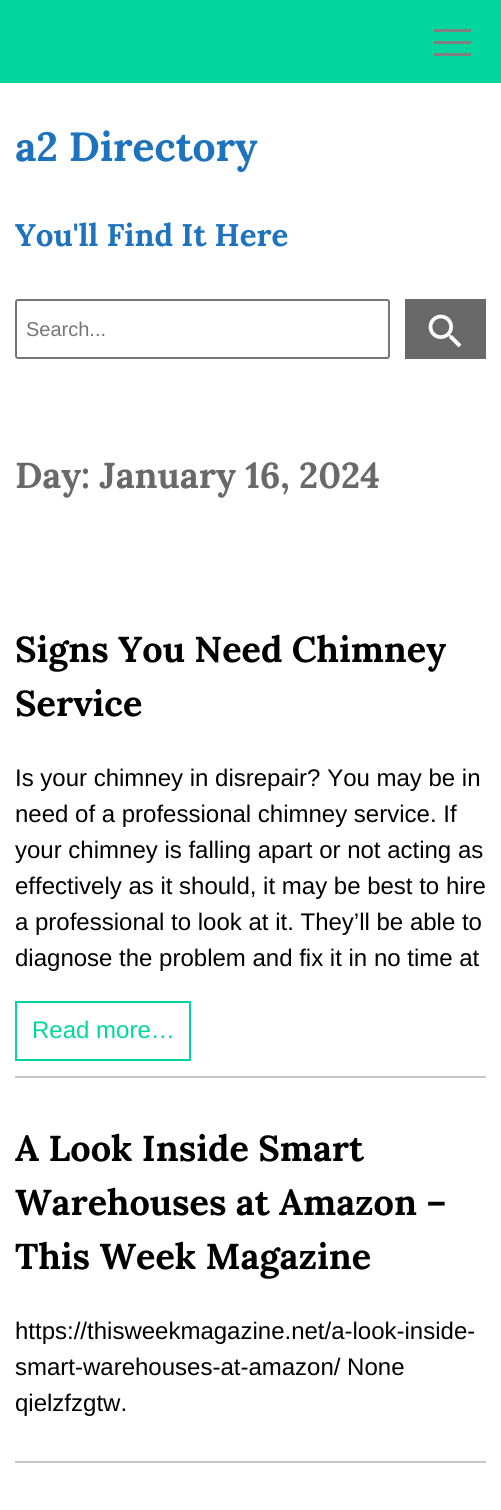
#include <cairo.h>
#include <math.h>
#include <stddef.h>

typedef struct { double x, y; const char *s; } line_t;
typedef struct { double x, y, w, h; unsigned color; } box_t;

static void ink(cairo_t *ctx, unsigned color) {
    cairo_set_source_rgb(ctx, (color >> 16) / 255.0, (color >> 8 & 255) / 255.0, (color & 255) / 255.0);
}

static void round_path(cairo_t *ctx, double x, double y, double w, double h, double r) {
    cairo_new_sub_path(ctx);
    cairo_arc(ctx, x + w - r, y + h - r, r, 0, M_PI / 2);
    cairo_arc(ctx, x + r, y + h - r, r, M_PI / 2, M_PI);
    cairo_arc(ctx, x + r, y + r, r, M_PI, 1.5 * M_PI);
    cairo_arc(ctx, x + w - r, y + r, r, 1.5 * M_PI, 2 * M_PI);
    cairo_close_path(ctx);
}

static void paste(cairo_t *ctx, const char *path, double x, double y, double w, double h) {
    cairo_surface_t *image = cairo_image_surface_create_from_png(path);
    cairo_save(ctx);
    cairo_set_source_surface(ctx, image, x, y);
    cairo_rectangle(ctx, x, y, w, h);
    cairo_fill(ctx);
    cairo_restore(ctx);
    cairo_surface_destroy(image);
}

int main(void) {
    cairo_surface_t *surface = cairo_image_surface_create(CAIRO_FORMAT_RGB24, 501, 1510);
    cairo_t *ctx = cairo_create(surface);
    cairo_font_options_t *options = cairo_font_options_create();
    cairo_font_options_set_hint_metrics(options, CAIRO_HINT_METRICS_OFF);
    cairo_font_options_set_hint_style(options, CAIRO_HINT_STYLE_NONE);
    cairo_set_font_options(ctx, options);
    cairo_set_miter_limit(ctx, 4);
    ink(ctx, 0xFFFFFF);
    cairo_paint(ctx);
    {
        static const box_t items[] = {
            {0, 0, 501, 83, 0x00D69D},
            {434, 29, 37, 3, 0x808080},
            {434, 41, 37, 3, 0x808080},
            {434, 53, 37, 3, 0x808080},
        };
        for (size_t i = 0; i < sizeof items / sizeof *items; i++) {
            ink(ctx, items[i].color);
            cairo_rectangle(ctx, items[i].x, items[i].y, items[i].w, items[i].h);
            cairo_fill(ctx);
        }
    }
    cairo_select_font_face(ctx, "Lora", CAIRO_FONT_SLANT_NORMAL, CAIRO_FONT_WEIGHT_BOLD);
    cairo_set_font_size(ctx, 40.75);
    ink(ctx, 0x1E73BE);
    cairo_move_to(ctx, 15, 161);
    cairo_show_text(ctx, "a2 Directory");
    cairo_set_font_size(ctx, 31.25);
    cairo_move_to(ctx, 15, 246);
    cairo_show_text(ctx, "You'll Find It Here");
    round_path(ctx, 16, 300, 373, 58, 2);
    ink(ctx, 0x767676);
    cairo_stroke(ctx);
    cairo_select_font_face(ctx, "Liberation Sans", CAIRO_FONT_SLANT_NORMAL, CAIRO_FONT_WEIGHT_NORMAL);
    cairo_set_font_size(ctx, 20);
    ink(ctx, 0x757575);
    cairo_move_to(ctx, 26, 336);
    cairo_show_text(ctx, "Search...");
    ink(ctx, 0x696969);
    cairo_rectangle(ctx, 405, 299, 81, 60);
    cairo_fill(ctx);
    paste(ctx, "media/1.png", 428, 314, 34, 34);
    cairo_select_font_face(ctx, "Lora", CAIRO_FONT_SLANT_NORMAL, CAIRO_FONT_WEIGHT_BOLD);
    cairo_set_font_size(ctx, 36);
    cairo_move_to(ctx, 15, 488);
    cairo_show_text(ctx, "Day: January 16, 2024");
    ink(ctx, 0xC6C6C6);
    cairo_rectangle(ctx, 15, 1076, 471, 2);
    cairo_fill(ctx);
    ink(ctx, 0x000000);
    cairo_move_to(ctx, 15, 662);
    cairo_show_text(ctx, "Signs You Need Chimney");
    cairo_move_to(ctx, 15, 716);
    cairo_show_text(ctx, "Service");
    cairo_select_font_face(ctx, "Liberation Sans", CAIRO_FONT_SLANT_NORMAL, CAIRO_FONT_WEIGHT_NORMAL);
    cairo_set_font_size(ctx, 24);
    {
        static const line_t items[] = {
            {15, 786, "Is your chimney in disrepair? You may be in"},
            {15, 822, "need of a professional chimney service. If"},
            {15, 858, "your chimney is falling apart or not acting as"},
            {15, 894, "effectively as it should, it may be best to hire"},
            {15, 930, "a professional to look at it. They’ll be able to"},
            {15, 966, "diagnose the problem and fix it in no time at"},
        };
        for (size_t i = 0; i < sizeof items / sizeof *items; i++) {
            cairo_move_to(ctx, items[i].x, items[i].y);
            cairo_show_text(ctx, items[i].s);
        }
    }
    cairo_rectangle(ctx, 16, 1002, 174, 58);
    ink(ctx, 0x00D69D);
    cairo_stroke(ctx);
    cairo_move_to(ctx, 32, 1038);
    cairo_show_text(ctx, "Read more…");
    ink(ctx, 0xC6C6C6);
    cairo_rectangle(ctx, 15, 1461, 471, 2);
    cairo_fill(ctx);
    cairo_select_font_face(ctx, "Lora", CAIRO_FONT_SLANT_NORMAL, CAIRO_FONT_WEIGHT_BOLD);
    cairo_set_font_size(ctx, 36);
    ink(ctx, 0x000000);
    {
        static const line_t items[] = {
            {15, 1161, "A Look Inside Smart"},
            {15, 1215, "Warehouses at Amazon –"},
            {15, 1269, "This Week Magazine"},
        };
        for (size_t i = 0; i < sizeof items / sizeof *items; i++) {
            cairo_move_to(ctx, items[i].x, items[i].y);
            cairo_show_text(ctx, items[i].s);
        }
    }
    cairo_select_font_face(ctx, "Liberation Sans", CAIRO_FONT_SLANT_NORMAL, CAIRO_FONT_WEIGHT_NORMAL);
    cairo_set_font_size(ctx, 24);
    {
        static const line_t items[] = {
            {15, 1339, "https://thisweekmagazine.net/a-look-inside-"},
            {15, 1375, "smart-warehouses-at-amazon/ None"},
            {15, 1411, "qielzfzgtw."},
        };
        for (size_t i = 0; i < sizeof items / sizeof *items; i++) {
            cairo_move_to(ctx, items[i].x, items[i].y);
            cairo_show_text(ctx, items[i].s);
        }
    }
    cairo_surface_write_to_png(surface, "image.png");
    cairo_font_options_destroy(options);
    cairo_destroy(ctx);
    cairo_surface_destroy(surface);
    return 0;
}
